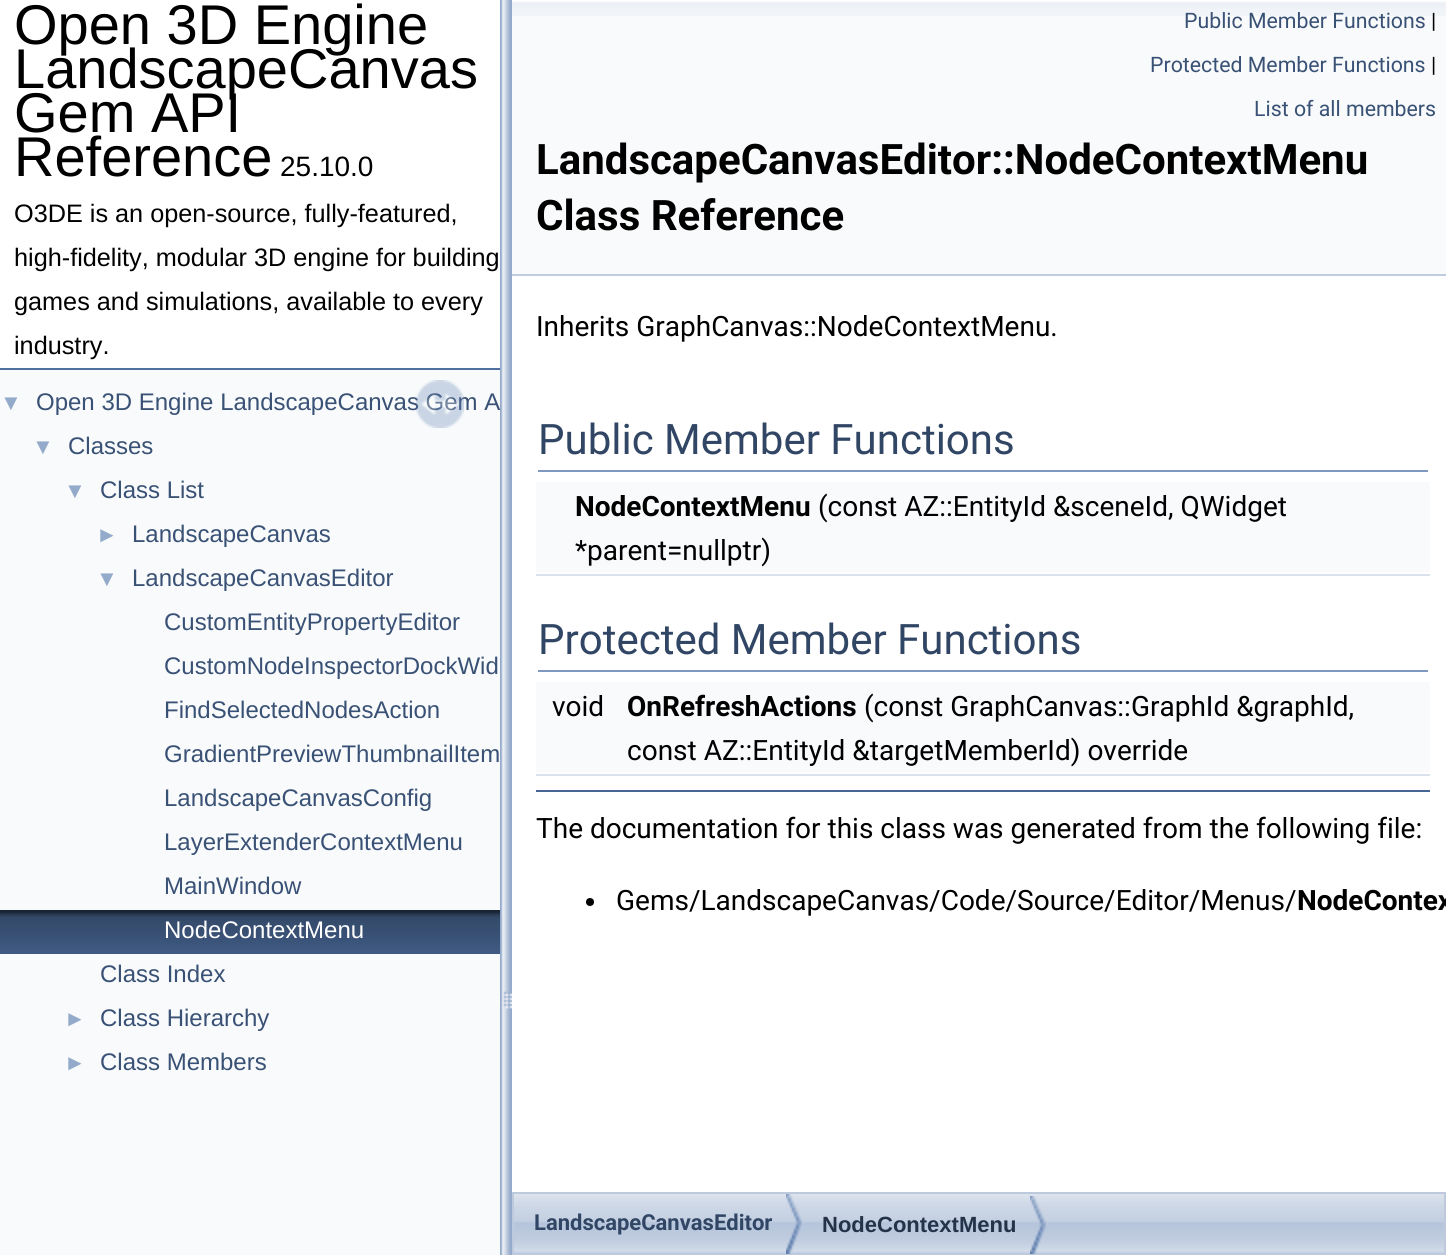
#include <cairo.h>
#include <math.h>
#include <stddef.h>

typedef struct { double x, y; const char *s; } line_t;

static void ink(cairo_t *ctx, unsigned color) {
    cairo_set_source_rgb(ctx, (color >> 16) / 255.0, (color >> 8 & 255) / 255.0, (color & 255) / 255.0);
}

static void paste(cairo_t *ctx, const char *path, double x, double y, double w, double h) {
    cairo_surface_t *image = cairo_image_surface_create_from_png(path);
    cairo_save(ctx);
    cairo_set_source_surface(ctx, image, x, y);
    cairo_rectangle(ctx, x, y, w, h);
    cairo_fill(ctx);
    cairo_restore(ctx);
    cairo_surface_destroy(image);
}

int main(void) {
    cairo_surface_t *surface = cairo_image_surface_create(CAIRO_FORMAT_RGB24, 1446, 1255);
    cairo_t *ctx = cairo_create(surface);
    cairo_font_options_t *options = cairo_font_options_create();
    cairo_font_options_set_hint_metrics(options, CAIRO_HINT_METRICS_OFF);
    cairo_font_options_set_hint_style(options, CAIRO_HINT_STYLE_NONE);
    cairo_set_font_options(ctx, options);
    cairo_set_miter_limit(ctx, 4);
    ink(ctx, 0xFFFFFF);
    cairo_paint(ctx);
    ink(ctx, 0x4E6FA0);
    cairo_rectangle(ctx, 0, 368, 500, 2);
    cairo_fill(ctx);
    cairo_select_font_face(ctx, "Liberation Sans", CAIRO_FONT_SLANT_NORMAL, CAIRO_FONT_WEIGHT_NORMAL);
    cairo_set_font_size(ctx, 56);
    ink(ctx, 0x000000);
    {
        static const line_t items[] = {
            {14, 44, "Open 3D Engine"},
            {14, 88, "LandscapeCanvas"},
            {14, 132, "Gem API"},
            {14, 176, "Reference"},
        };
        for (size_t i = 0; i < sizeof items / sizeof *items; i++) {
            cairo_move_to(ctx, items[i].x, items[i].y);
            cairo_show_text(ctx, items[i].s);
        }
    }
    cairo_set_font_size(ctx, 28);
    cairo_move_to(ctx, 280, 176);
    cairo_show_text(ctx, "25.10.0");
    cairo_set_font_size(ctx, 25.25);
    {
        static const line_t items[] = {
            {14, 222, "O3DE is an open-source, fully-featured,"},
            {14, 266, "high-fidelity, modular 3D engine for building"},
            {14, 310, "games and simulations, available to every"},
            {14, 354, "industry."},
        };
        for (size_t i = 0; i < sizeof items / sizeof *items; i++) {
            cairo_move_to(ctx, items[i].x, items[i].y);
            cairo_show_text(ctx, items[i].s);
        }
    }
    paste(ctx, "media/1.png", 500, 0, 12, 1255);
    ink(ctx, 0xF8FAFB);
    cairo_rectangle(ctx, 0, 370, 500, 885);
    cairo_fill(ctx);
    cairo_set_font_size(ctx, 24);
    ink(ctx, 0x395175);
    cairo_move_to(ctx, 36, 410);
    cairo_show_text(ctx, "Open 3D Engine LandscapeCanvas Gem A");
    paste(ctx, "media/2.png", 416, 380, 48, 48);
    cairo_set_font_size(ctx, 22);
    ink(ctx, 0x94AACA);
    cairo_move_to(ctx, 0, 410);
    cairo_show_text(ctx, "▼");
    cairo_move_to(ctx, 32, 454);
    cairo_show_text(ctx, "▼");
    cairo_set_font_size(ctx, 24);
    ink(ctx, 0x395175);
    cairo_move_to(ctx, 68, 454);
    cairo_show_text(ctx, "Classes");
    cairo_set_font_size(ctx, 22);
    ink(ctx, 0x94AACA);
    cairo_move_to(ctx, 64, 498);
    cairo_show_text(ctx, "▼");
    cairo_set_font_size(ctx, 24);
    ink(ctx, 0x395175);
    cairo_move_to(ctx, 100, 498);
    cairo_show_text(ctx, "Class List");
    cairo_set_font_size(ctx, 22);
    ink(ctx, 0x94AACA);
    cairo_move_to(ctx, 96, 542);
    cairo_show_text(ctx, "►");
    cairo_set_font_size(ctx, 24);
    ink(ctx, 0x395175);
    cairo_move_to(ctx, 132, 542);
    cairo_show_text(ctx, "LandscapeCanvas");
    cairo_set_font_size(ctx, 22);
    ink(ctx, 0x94AACA);
    cairo_move_to(ctx, 96, 586);
    cairo_show_text(ctx, "▼");
    cairo_set_font_size(ctx, 24);
    ink(ctx, 0x395175);
    {
        static const line_t items[] = {
            {132, 586, "LandscapeCanvasEditor"},
            {164, 630, "CustomEntityPropertyEditor"},
            {164, 674, "CustomNodeInspectorDockWid"},
            {164, 718, "FindSelectedNodesAction"},
            {164, 762, "GradientPreviewThumbnailItem"},
            {164, 806, "LandscapeCanvasConfig"},
            {164, 850, "LayerExtenderContextMenu"},
            {164, 894, "MainWindow"},
        };
        for (size_t i = 0; i < sizeof items / sizeof *items; i++) {
            cairo_move_to(ctx, items[i].x, items[i].y);
            cairo_show_text(ctx, items[i].s);
        }
    }
    paste(ctx, "media/3.png", 0, 910, 500, 44);
    ink(ctx, 0xFFFFFF);
    cairo_move_to(ctx, 164, 938);
    cairo_show_text(ctx, "NodeContextMenu");
    ink(ctx, 0x395175);
    cairo_move_to(ctx, 100, 982);
    cairo_show_text(ctx, "Class Index");
    cairo_set_font_size(ctx, 22);
    ink(ctx, 0x94AACA);
    cairo_move_to(ctx, 64, 1026);
    cairo_show_text(ctx, "►");
    cairo_set_font_size(ctx, 24);
    ink(ctx, 0x395175);
    cairo_move_to(ctx, 100, 1026);
    cairo_show_text(ctx, "Class Hierarchy");
    cairo_set_font_size(ctx, 22);
    ink(ctx, 0x94AACA);
    cairo_move_to(ctx, 64, 1070);
    cairo_show_text(ctx, "►");
    cairo_set_font_size(ctx, 24);
    ink(ctx, 0x395175);
    cairo_move_to(ctx, 100, 1070);
    cairo_show_text(ctx, "Class Members");
    ink(ctx, 0xF8FAFB);
    cairo_rectangle(ctx, 512, 16, 934, 258);
    cairo_fill(ctx);
    paste(ctx, "media/4.png", 512, 0, 934, 16);
    ink(ctx, 0xBFCCDF);
    cairo_rectangle(ctx, 512, 274, 934, 2);
    cairo_fill(ctx);
    cairo_select_font_face(ctx, "Roboto", CAIRO_FONT_SLANT_NORMAL, CAIRO_FONT_WEIGHT_NORMAL);
    cairo_set_font_size(ctx, 21.3);
    ink(ctx, 0x395175);
    cairo_move_to(ctx, 1184, 28);
    cairo_show_text(ctx, "Public Member Functions");
    ink(ctx, 0x000000);
    cairo_move_to(ctx, 1431, 28);
    cairo_show_text(ctx, "|");
    ink(ctx, 0x395175);
    cairo_move_to(ctx, 1150, 72);
    cairo_show_text(ctx, "Protected Member Functions");
    ink(ctx, 0x000000);
    cairo_move_to(ctx, 1431, 72);
    cairo_show_text(ctx, "|");
    ink(ctx, 0x395175);
    cairo_move_to(ctx, 1254, 116);
    cairo_show_text(ctx, "List of all members");
    cairo_select_font_face(ctx, "Roboto", CAIRO_FONT_SLANT_NORMAL, CAIRO_FONT_WEIGHT_BOLD);
    cairo_set_font_size(ctx, 42);
    ink(ctx, 0x000000);
    cairo_move_to(ctx, 536, 174);
    cairo_show_text(ctx, "LandscapeCanvasEditor::NodeContextMenu");
    cairo_move_to(ctx, 536, 230);
    cairo_show_text(ctx, "Class Reference");
    cairo_select_font_face(ctx, "Roboto", CAIRO_FONT_SLANT_NORMAL, CAIRO_FONT_WEIGHT_NORMAL);
    cairo_set_font_size(ctx, 28);
    cairo_move_to(ctx, 536, 336);
    cairo_show_text(ctx, "Inherits GraphCanvas::NodeContextMenu.");
    ink(ctx, 0x7E98C0);
    cairo_rectangle(ctx, 538, 470, 890, 2);
    cairo_fill(ctx);
    cairo_set_font_size(ctx, 42);
    ink(ctx, 0x314665);
    cairo_move_to(ctx, 538, 454);
    cairo_show_text(ctx, "Public Member Functions");
    ink(ctx, 0xF8FAFB);
    cairo_rectangle(ctx, 536, 482, 894, 90);
    cairo_fill(ctx);
    cairo_select_font_face(ctx, "Roboto", CAIRO_FONT_SLANT_NORMAL, CAIRO_FONT_WEIGHT_BOLD);
    cairo_set_font_size(ctx, 28);
    ink(ctx, 0x000000);
    cairo_move_to(ctx, 575, 516);
    cairo_show_text(ctx, "NodeContextMenu");
    cairo_select_font_face(ctx, "Roboto", CAIRO_FONT_SLANT_NORMAL, CAIRO_FONT_WEIGHT_NORMAL);
    cairo_move_to(ctx, 818, 516);
    cairo_show_text(ctx, "(const AZ::EntityId &sceneId, QWidget");
    cairo_move_to(ctx, 575, 560);
    cairo_show_text(ctx, "*parent=nullptr)");
    ink(ctx, 0xDBE2ED);
    cairo_rectangle(ctx, 536, 574, 894, 2);
    cairo_fill(ctx);
    ink(ctx, 0x7E98C0);
    cairo_rectangle(ctx, 538, 670, 890, 2);
    cairo_fill(ctx);
    cairo_set_font_size(ctx, 42);
    ink(ctx, 0x314665);
    cairo_move_to(ctx, 538, 654);
    cairo_show_text(ctx, "Protected Member Functions");
    ink(ctx, 0xF8FAFB);
    cairo_rectangle(ctx, 536, 682, 894, 90);
    cairo_fill(ctx);
    cairo_set_font_size(ctx, 28);
    ink(ctx, 0x000000);
    cairo_move_to(ctx, 552, 716);
    cairo_show_text(ctx, "void");
    cairo_select_font_face(ctx, "Roboto", CAIRO_FONT_SLANT_NORMAL, CAIRO_FONT_WEIGHT_BOLD);
    cairo_move_to(ctx, 627, 716);
    cairo_show_text(ctx, "OnRefreshActions");
    cairo_select_font_face(ctx, "Roboto", CAIRO_FONT_SLANT_NORMAL, CAIRO_FONT_WEIGHT_NORMAL);
    cairo_move_to(ctx, 864, 716);
    cairo_show_text(ctx, "(const GraphCanvas::GraphId &graphId,");
    cairo_move_to(ctx, 627, 760);
    cairo_show_text(ctx, "const AZ::EntityId &targetMemberId) override");
    ink(ctx, 0xDBE2ED);
    cairo_rectangle(ctx, 536, 774, 894, 2);
    cairo_fill(ctx);
    ink(ctx, 0x486693);
    cairo_rectangle(ctx, 536, 790, 894, 2);
    cairo_fill(ctx);
    ink(ctx, 0x000000);
    cairo_move_to(ctx, 536, 838);
    cairo_show_text(ctx, "The documentation for this class was generated from the following file:");
    cairo_new_path(ctx);
    cairo_arc(ctx, 590, 902, 4, 0, 2 * M_PI);
    cairo_fill(ctx);
    cairo_move_to(ctx, 616, 910);
    cairo_show_text(ctx, "Gems/LandscapeCanvas/Code/Source/Editor/Menus/");
    cairo_select_font_face(ctx, "Roboto", CAIRO_FONT_SLANT_NORMAL, CAIRO_FONT_WEIGHT_BOLD);
    cairo_move_to(ctx, 1297, 910);
    cairo_show_text(ctx, "NodeContex");
    paste(ctx, "media/5.png", 514, 1194, 930, 60);
    cairo_rectangle(ctx, 513, 1193, 932, 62);
    ink(ctx, 0xBDCADE);
    cairo_stroke(ctx);
    paste(ctx, "media/6.png", 786, 1194, 16, 60);
    cairo_set_font_size(ctx, 22);
    ink(ctx, 0x314665);
    cairo_move_to(ctx, 534, 1230);
    cairo_show_text(ctx, "LandscapeCanvasEditor");
    paste(ctx, "media/7.png", 1030, 1196, 16, 58);
    cairo_select_font_face(ctx, "Liberation Sans", CAIRO_FONT_SLANT_NORMAL, CAIRO_FONT_WEIGHT_BOLD);
    ink(ctx, 0x243349);
    cairo_move_to(ctx, 822, 1232);
    cairo_show_text(ctx, "NodeContextMenu");
    cairo_surface_write_to_png(surface, "image.png");
    cairo_font_options_destroy(options);
    cairo_destroy(ctx);
    cairo_surface_destroy(surface);
    return 0;
}
